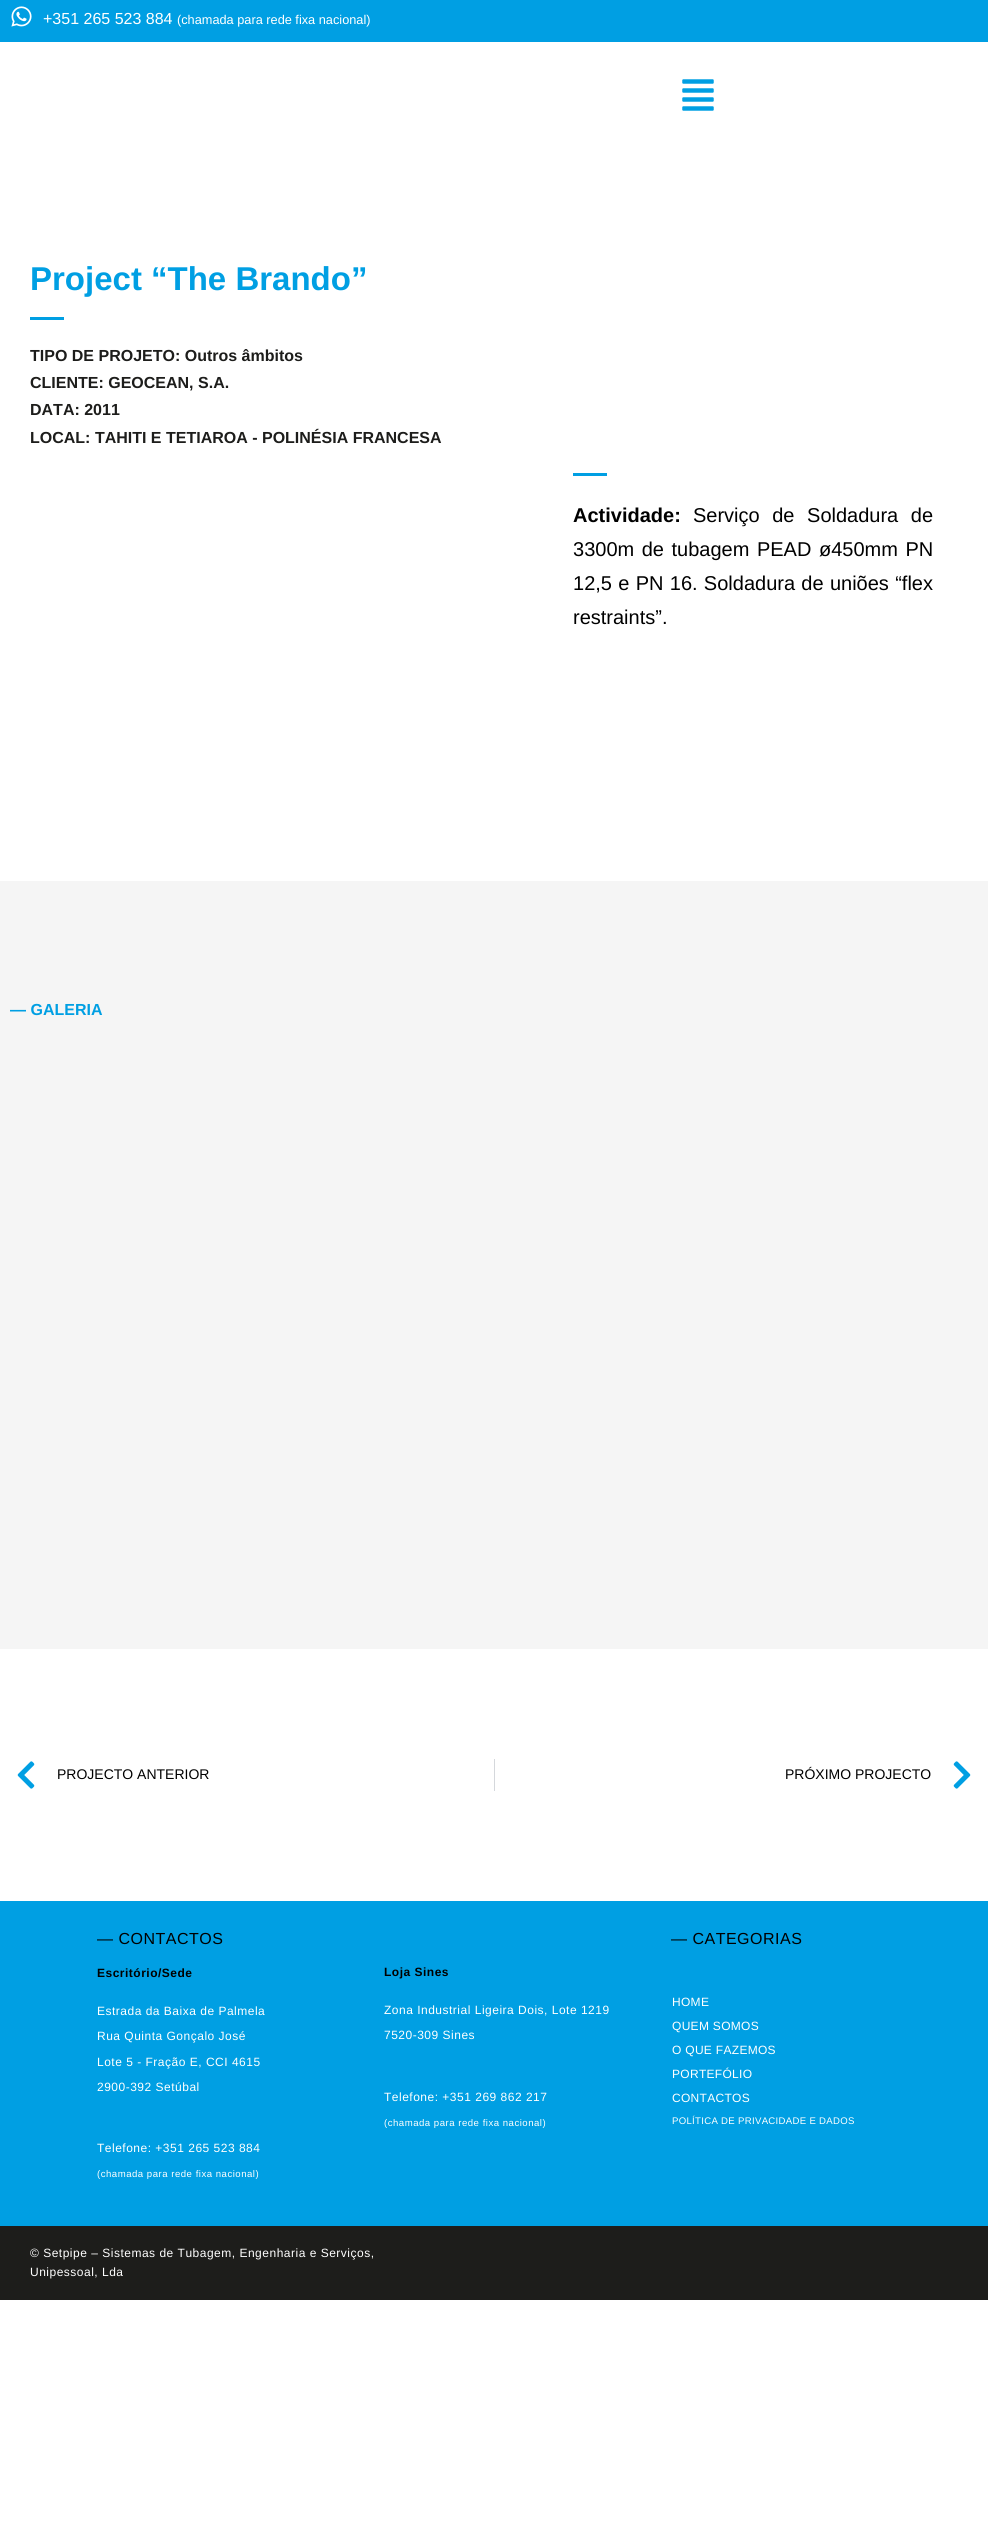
#include <cairo.h>
#include <math.h>
#include <stddef.h>

typedef struct { double x, y; const char *s; } line_t;

static void ink(cairo_t *ctx, unsigned color) {
    cairo_set_source_rgb(ctx, (color >> 16) / 255.0, (color >> 8 & 255) / 255.0, (color & 255) / 255.0);
}

static void write_spaced(cairo_t *ctx, double x, double y, const char *s, double letter, double word) {
    cairo_move_to(ctx, x, y);
    while (*s) {
        char ch[5] = {0};
        int n = 0;
        do ch[n++] = *s++; while ((*s & 0xC0) == 0x80);
        cairo_show_text(ctx, ch);
        cairo_rel_move_to(ctx, letter + word * (*ch == ' '), 0);
    }
}

static void paste(cairo_t *ctx, const char *path, double x, double y, double w, double h) {
    cairo_surface_t *image = cairo_image_surface_create_from_png(path);
    cairo_save(ctx);
    cairo_set_source_surface(ctx, image, x, y);
    cairo_rectangle(ctx, x, y, w, h);
    cairo_fill(ctx);
    cairo_restore(ctx);
    cairo_surface_destroy(image);
}

int main(void) {
    cairo_surface_t *surface = cairo_image_surface_create(CAIRO_FORMAT_RGB24, 988, 2527);
    cairo_t *ctx = cairo_create(surface);
    cairo_font_options_t *options = cairo_font_options_create();
    cairo_font_options_set_hint_metrics(options, CAIRO_HINT_METRICS_OFF);
    cairo_font_options_set_hint_style(options, CAIRO_HINT_STYLE_NONE);
    cairo_set_font_options(ctx, options);
    cairo_set_miter_limit(ctx, 4);
    ink(ctx, 0xFFFFFF);
    cairo_paint(ctx);
    ink(ctx, 0x009FE3);
    cairo_rectangle(ctx, 0, 0, 988, 42);
    cairo_fill(ctx);
    paste(ctx, "media/1.png", 11, 6, 21, 21);
    cairo_select_font_face(ctx, "Liberation Sans", CAIRO_FONT_SLANT_NORMAL, CAIRO_FONT_WEIGHT_NORMAL);
    cairo_set_font_size(ctx, 16);
    ink(ctx, 0xFFFFFF);
    cairo_move_to(ctx, 43, 24);
    cairo_show_text(ctx, "+351 265 523 884");
    cairo_set_font_size(ctx, 12.75);
    cairo_move_to(ctx, 177, 24);
    cairo_show_text(ctx, "(chamada para rede fixa nacional)");
    paste(ctx, "media/2.png", 682, 79, 32, 32);
    cairo_select_font_face(ctx, "Liberation Sans", CAIRO_FONT_SLANT_NORMAL, CAIRO_FONT_WEIGHT_BOLD);
    cairo_set_font_size(ctx, 33);
    ink(ctx, 0x009FE3);
    cairo_move_to(ctx, 30, 290);
    cairo_show_text(ctx, "Project “The Brando”");
    cairo_rectangle(ctx, 30, 317, 34, 3);
    cairo_fill(ctx);
    cairo_set_font_size(ctx, 16);
    ink(ctx, 0x1D1D1B);
    {
        static const line_t items[] = {
            {30, 361, "TIPO DE PROJETO: Outros âmbitos"},
            {30, 388, "CLIENTE: GEOCEAN, S.A."},
            {30, 415, "DATA: 2011"},
            {30, 443, "LOCAL: TAHITI E TETIAROA - POLINÉSIA FRANCESA"},
        };
        for (size_t i = 0; i < sizeof items / sizeof *items; i++) {
            cairo_move_to(ctx, items[i].x, items[i].y);
            cairo_show_text(ctx, items[i].s);
        }
    }
    ink(ctx, 0x009FE3);
    cairo_rectangle(ctx, 573, 473, 34, 3);
    cairo_fill(ctx);
    cairo_set_font_size(ctx, 20);
    ink(ctx, 0x000000);
    cairo_move_to(ctx, 573, 522);
    cairo_show_text(ctx, "Actividade:");
    cairo_select_font_face(ctx, "Liberation Sans", CAIRO_FONT_SLANT_NORMAL, CAIRO_FONT_WEIGHT_NORMAL);
    write_spaced(ctx, 693, 522, "Serviço de Soldadura de", 0, 7);
    write_spaced(ctx, 573, 556, "3300m de tubagem PEAD ø450mm PN", 0, 2);
    write_spaced(ctx, 573, 590, "12,5 e PN 16. Soldadura de uniões “flex", 0, 0.75);
    cairo_move_to(ctx, 573, 624);
    cairo_show_text(ctx, "restraints”.");
    ink(ctx, 0xF5F5F5);
    cairo_rectangle(ctx, 0, 881, 988, 768);
    cairo_fill(ctx);
    cairo_select_font_face(ctx, "Liberation Sans", CAIRO_FONT_SLANT_NORMAL, CAIRO_FONT_WEIGHT_BOLD);
    cairo_set_font_size(ctx, 16);
    ink(ctx, 0x009FE3);
    cairo_move_to(ctx, 10, 1015);
    cairo_show_text(ctx, "— GALERIA");
    paste(ctx, "media/3.png", 17, 1761, 18, 28);
    cairo_select_font_face(ctx, "Liberation Sans", CAIRO_FONT_SLANT_NORMAL, CAIRO_FONT_WEIGHT_NORMAL);
    cairo_set_font_size(ctx, 14);
    ink(ctx, 0x000000);
    cairo_move_to(ctx, 57, 1779);
    cairo_show_text(ctx, "PROJECTO ANTERIOR");
    ink(ctx, 0xD5D8DC);
    cairo_rectangle(ctx, 494, 1759, 1, 32);
    cairo_fill(ctx);
    ink(ctx, 0x000000);
    cairo_move_to(ctx, 785, 1779);
    cairo_show_text(ctx, "PRÓXIMO PROJECTO");
    paste(ctx, "media/4.png", 953, 1761, 18, 28);
    ink(ctx, 0x009FE3);
    cairo_rectangle(ctx, 0, 1901, 988, 325);
    cairo_fill(ctx);
    cairo_set_font_size(ctx, 16);
    ink(ctx, 0x000000);
    write_spaced(ctx, 97, 1944, "— CONTACTOS", 0.5, 0);
    cairo_select_font_face(ctx, "Liberation Sans", CAIRO_FONT_SLANT_NORMAL, CAIRO_FONT_WEIGHT_BOLD);
    cairo_set_font_size(ctx, 12);
    write_spaced(ctx, 97, 1977, "Escritório/Sede", 0.5, 0);
    cairo_select_font_face(ctx, "Liberation Sans", CAIRO_FONT_SLANT_NORMAL, CAIRO_FONT_WEIGHT_NORMAL);
    ink(ctx, 0xFFFFFF);
    {
        static const line_t items[] = {
            {97, 2015, "Estrada da Baixa de Palmela"},
            {97, 2040, "Rua Quinta Gonçalo José"},
            {97, 2066, "Lote 5 - Fração E, CCI 4615"},
            {97, 2091, "2900-392 Setúbal"},
            {97, 2152, "Telefone: +351 265 523 884"},
        };
        for (size_t i = 0; i < sizeof items / sizeof *items; i++) {
            write_spaced(ctx, items[i].x, items[i].y, items[i].s, 0.5, 0);
        }
    }
    cairo_set_font_size(ctx, 9.6);
    write_spaced(ctx, 97, 2177, "(chamada para rede fixa nacional)", 0.5, 0);
    cairo_select_font_face(ctx, "Liberation Sans", CAIRO_FONT_SLANT_NORMAL, CAIRO_FONT_WEIGHT_BOLD);
    cairo_set_font_size(ctx, 12);
    ink(ctx, 0x000000);
    write_spaced(ctx, 384, 1976, "Loja Sines", 0.5, 0);
    cairo_select_font_face(ctx, "Liberation Sans", CAIRO_FONT_SLANT_NORMAL, CAIRO_FONT_WEIGHT_NORMAL);
    ink(ctx, 0xFFFFFF);
    {
        static const line_t items[] = {
            {384, 2014, "Zona Industrial Ligeira Dois, Lote 1219"},
            {384, 2039, "7520-309 Sines"},
            {384, 2101, "Telefone: +351 269 862 217"},
        };
        for (size_t i = 0; i < sizeof items / sizeof *items; i++) {
            write_spaced(ctx, items[i].x, items[i].y, items[i].s, 0.5, 0);
        }
    }
    cairo_set_font_size(ctx, 9.6);
    write_spaced(ctx, 384, 2126, "(chamada para rede fixa nacional)", 0.5, 0);
    cairo_set_font_size(ctx, 16);
    ink(ctx, 0x000000);
    write_spaced(ctx, 671, 1944, "— CATEGORIAS", 0.5, 0);
    cairo_set_font_size(ctx, 12);
    ink(ctx, 0xFFFFFF);
    {
        static const line_t items[] = {
            {672, 2006, "HOME"},
            {672, 2030, "QUEM SOMOS"},
            {672, 2054, "O QUE FAZEMOS"},
            {672, 2078, "PORTEFÓLIO"},
            {672, 2102, "CONTACTOS"},
        };
        for (size_t i = 0; i < sizeof items / sizeof *items; i++) {
            write_spaced(ctx, items[i].x, items[i].y, items[i].s, 0.3, 0);
        }
    }
    cairo_set_font_size(ctx, 9.6);
    write_spaced(ctx, 672, 2124, "POLÍTICA DE PRIVACIDADE E DADOS", 0.3, 0);
    ink(ctx, 0x1D1D1B);
    cairo_rectangle(ctx, 0, 2226, 988, 74);
    cairo_fill(ctx);
    cairo_set_font_size(ctx, 12);
    ink(ctx, 0xFFFFFF);
    write_spaced(ctx, 30, 2257, "© Setpipe – Sistemas de Tubagem, Engenharia e Serviços,", 0.5, 0);
    write_spaced(ctx, 30, 2276, "Unipessoal, Lda", 0.5, 0);
    cairo_surface_write_to_png(surface, "image.png");
    cairo_font_options_destroy(options);
    cairo_destroy(ctx);
    cairo_surface_destroy(surface);
    return 0;
}
